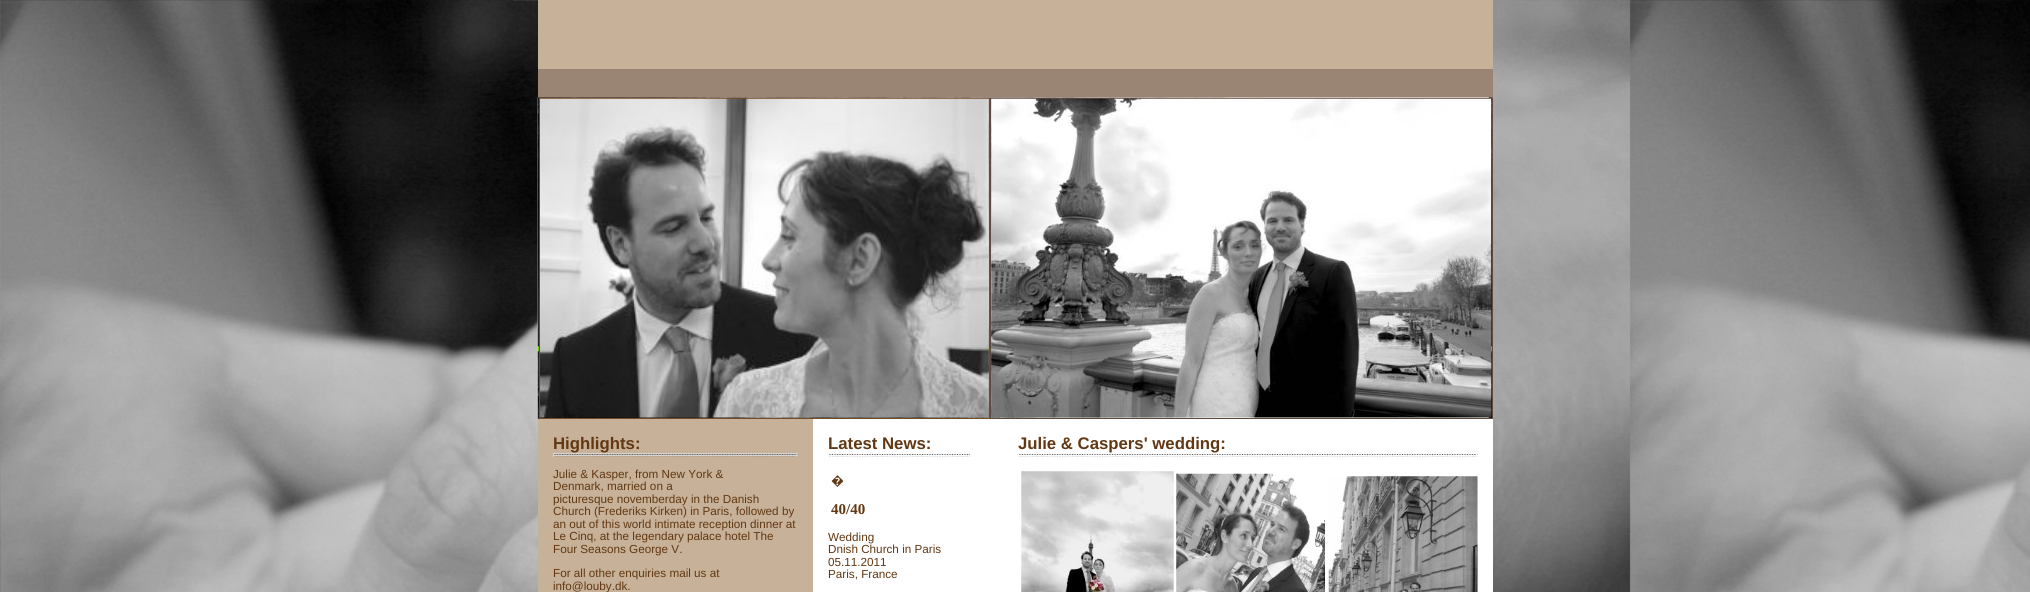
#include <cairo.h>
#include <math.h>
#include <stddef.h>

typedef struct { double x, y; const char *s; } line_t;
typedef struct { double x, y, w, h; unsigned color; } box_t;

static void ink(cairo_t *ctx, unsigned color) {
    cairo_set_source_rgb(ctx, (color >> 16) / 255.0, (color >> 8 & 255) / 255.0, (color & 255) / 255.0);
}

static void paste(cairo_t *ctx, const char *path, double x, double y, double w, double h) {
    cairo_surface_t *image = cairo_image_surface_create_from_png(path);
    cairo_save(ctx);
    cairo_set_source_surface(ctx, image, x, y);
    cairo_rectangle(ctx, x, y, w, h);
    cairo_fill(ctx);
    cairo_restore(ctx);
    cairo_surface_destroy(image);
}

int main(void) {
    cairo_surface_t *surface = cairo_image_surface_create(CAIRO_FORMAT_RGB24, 2030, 592);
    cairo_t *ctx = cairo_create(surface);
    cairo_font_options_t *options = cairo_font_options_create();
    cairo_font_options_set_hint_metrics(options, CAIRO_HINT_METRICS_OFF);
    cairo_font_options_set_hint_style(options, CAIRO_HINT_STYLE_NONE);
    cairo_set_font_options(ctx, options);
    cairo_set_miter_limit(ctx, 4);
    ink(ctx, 0xFFFFFF);
    cairo_paint(ctx);
    paste(ctx, "media/1.png", 0, 0, 2030, 592);
    ink(ctx, 0xC7B198);
    cairo_rectangle(ctx, 538, 0, 955, 69);
    cairo_fill(ctx);
    ink(ctx, 0x9A8575);
    cairo_rectangle(ctx, 538, 69, 955, 29);
    cairo_fill(ctx);
    paste(ctx, "media/2.png", 537, 97, 956, 322);
    cairo_rectangle(ctx, 539.5, 98.5, 450, 320);
    ink(ctx, 0x744B24);
    cairo_set_line_width(ctx, 1);
    cairo_stroke(ctx);
    paste(ctx, "media/3.png", 540, 98, 449, 320);
    cairo_rectangle(ctx, 990.5, 98.5, 502, 320);
    ink(ctx, 0x634841);
    cairo_stroke(ctx);
    paste(ctx, "media/4.png", 991, 98, 501, 320);
    ink(ctx, 0xC7B198);
    cairo_rectangle(ctx, 538, 419, 275, 173);
    cairo_fill(ctx);
    cairo_select_font_face(ctx, "Liberation Sans", CAIRO_FONT_SLANT_NORMAL, CAIRO_FONT_WEIGHT_BOLD);
    cairo_set_font_size(ctx, 16.75);
    ink(ctx, 0x613813);
    cairo_move_to(ctx, 553, 449);
    cairo_show_text(ctx, "Highlights:");
    ink(ctx, 0xD6D5D5);
    cairo_rectangle(ctx, 553, 453, 245, 1);
    cairo_fill(ctx);
    paste(ctx, "media/5.png", 554, 454, 244, 3);
    {
        static const box_t items[] = {
            {796, 453, 1, 4, 0xD6D5D5},
            {553, 455, 245, 1, 0xD6D5D5},
            {553, 453, 1, 4, 0xD6D5D5},
        };
        for (size_t i = 0; i < sizeof items / sizeof *items; i++) {
            ink(ctx, items[i].color);
            cairo_rectangle(ctx, items[i].x, items[i].y, items[i].w, items[i].h);
            cairo_fill(ctx);
        }
    }
    cairo_select_font_face(ctx, "Liberation Sans", CAIRO_FONT_SLANT_NORMAL, CAIRO_FONT_WEIGHT_NORMAL);
    cairo_set_font_size(ctx, 11.7);
    ink(ctx, 0x613813);
    {
        static const line_t items[] = {
            {553, 478, "Julie & Kasper, from New York &"},
            {553, 490, "Denmark, married on a"},
            {553, 503, "picturesque novemberday in the Danish"},
            {553, 515, "Church (Frederiks Kirken) in Paris, followed by"},
            {553, 528, "an out of this world intimate reception dinner at"},
            {553, 540, "Le Cinq, at the legendary palace hotel The"},
            {553, 553, "Four Seasons George V."},
            {553, 577, "For all other enquiries mail us at"},
            {553, 590, "info@louby.dk."},
        };
        for (size_t i = 0; i < sizeof items / sizeof *items; i++) {
            cairo_move_to(ctx, items[i].x, items[i].y);
            cairo_show_text(ctx, items[i].s);
        }
    }
    ink(ctx, 0xFFFFFF);
    cairo_rectangle(ctx, 813, 419, 680, 173);
    cairo_fill(ctx);
    cairo_select_font_face(ctx, "Liberation Sans", CAIRO_FONT_SLANT_NORMAL, CAIRO_FONT_WEIGHT_BOLD);
    cairo_set_font_size(ctx, 16.75);
    ink(ctx, 0x613813);
    cairo_move_to(ctx, 828, 449);
    cairo_show_text(ctx, "Latest News:");
    paste(ctx, "media/6.png", 829, 454, 143, 3);
    ink(ctx, 0xFFFFFF);
    cairo_rectangle(ctx, 970, 453, 1, 4);
    cairo_fill(ctx);
    cairo_rectangle(ctx, 828, 455, 143, 1);
    cairo_fill(ctx);
    cairo_select_font_face(ctx, "Noto Sans", CAIRO_FONT_SLANT_NORMAL, CAIRO_FONT_WEIGHT_BOLD);
    cairo_set_font_size(ctx, 13);
    ink(ctx, 0x613813);
    cairo_move_to(ctx, 831, 485);
    cairo_show_text(ctx, "�");
    cairo_select_font_face(ctx, "Liberation Serif", CAIRO_FONT_SLANT_NORMAL, CAIRO_FONT_WEIGHT_BOLD);
    cairo_set_font_size(ctx, 15);
    cairo_move_to(ctx, 831, 514);
    cairo_show_text(ctx, "40/40");
    cairo_select_font_face(ctx, "Liberation Sans", CAIRO_FONT_SLANT_NORMAL, CAIRO_FONT_WEIGHT_NORMAL);
    cairo_set_font_size(ctx, 11.7);
    {
        static const line_t items[] = {
            {828, 541, "Wedding"},
            {828, 553, "Dnish Church in Paris"},
            {828, 566, "05.11.2011"},
            {828, 578, "Paris, France"},
        };
        for (size_t i = 0; i < sizeof items / sizeof *items; i++) {
            cairo_move_to(ctx, items[i].x, items[i].y);
            cairo_show_text(ctx, items[i].s);
        }
    }
    cairo_select_font_face(ctx, "Liberation Sans", CAIRO_FONT_SLANT_NORMAL, CAIRO_FONT_WEIGHT_BOLD);
    cairo_set_font_size(ctx, 16.75);
    cairo_move_to(ctx, 1018, 449);
    cairo_show_text(ctx, "Julie & Caspers' wedding:");
    paste(ctx, "media/7.png", 1019, 454, 459, 3);
    ink(ctx, 0xFFFFFF);
    cairo_rectangle(ctx, 1476, 453, 1, 4);
    cairo_fill(ctx);
    cairo_rectangle(ctx, 1018, 455, 460, 1);
    cairo_fill(ctx);
    paste(ctx, "media/8.png", 1021, 471, 153, 121);
    paste(ctx, "media/9.png", 1176, 473, 149, 119);
    paste(ctx, "media/10.png", 1328, 476, 150, 116);
    cairo_surface_write_to_png(surface, "image.png");
    cairo_font_options_destroy(options);
    cairo_destroy(ctx);
    cairo_surface_destroy(surface);
    return 0;
}
